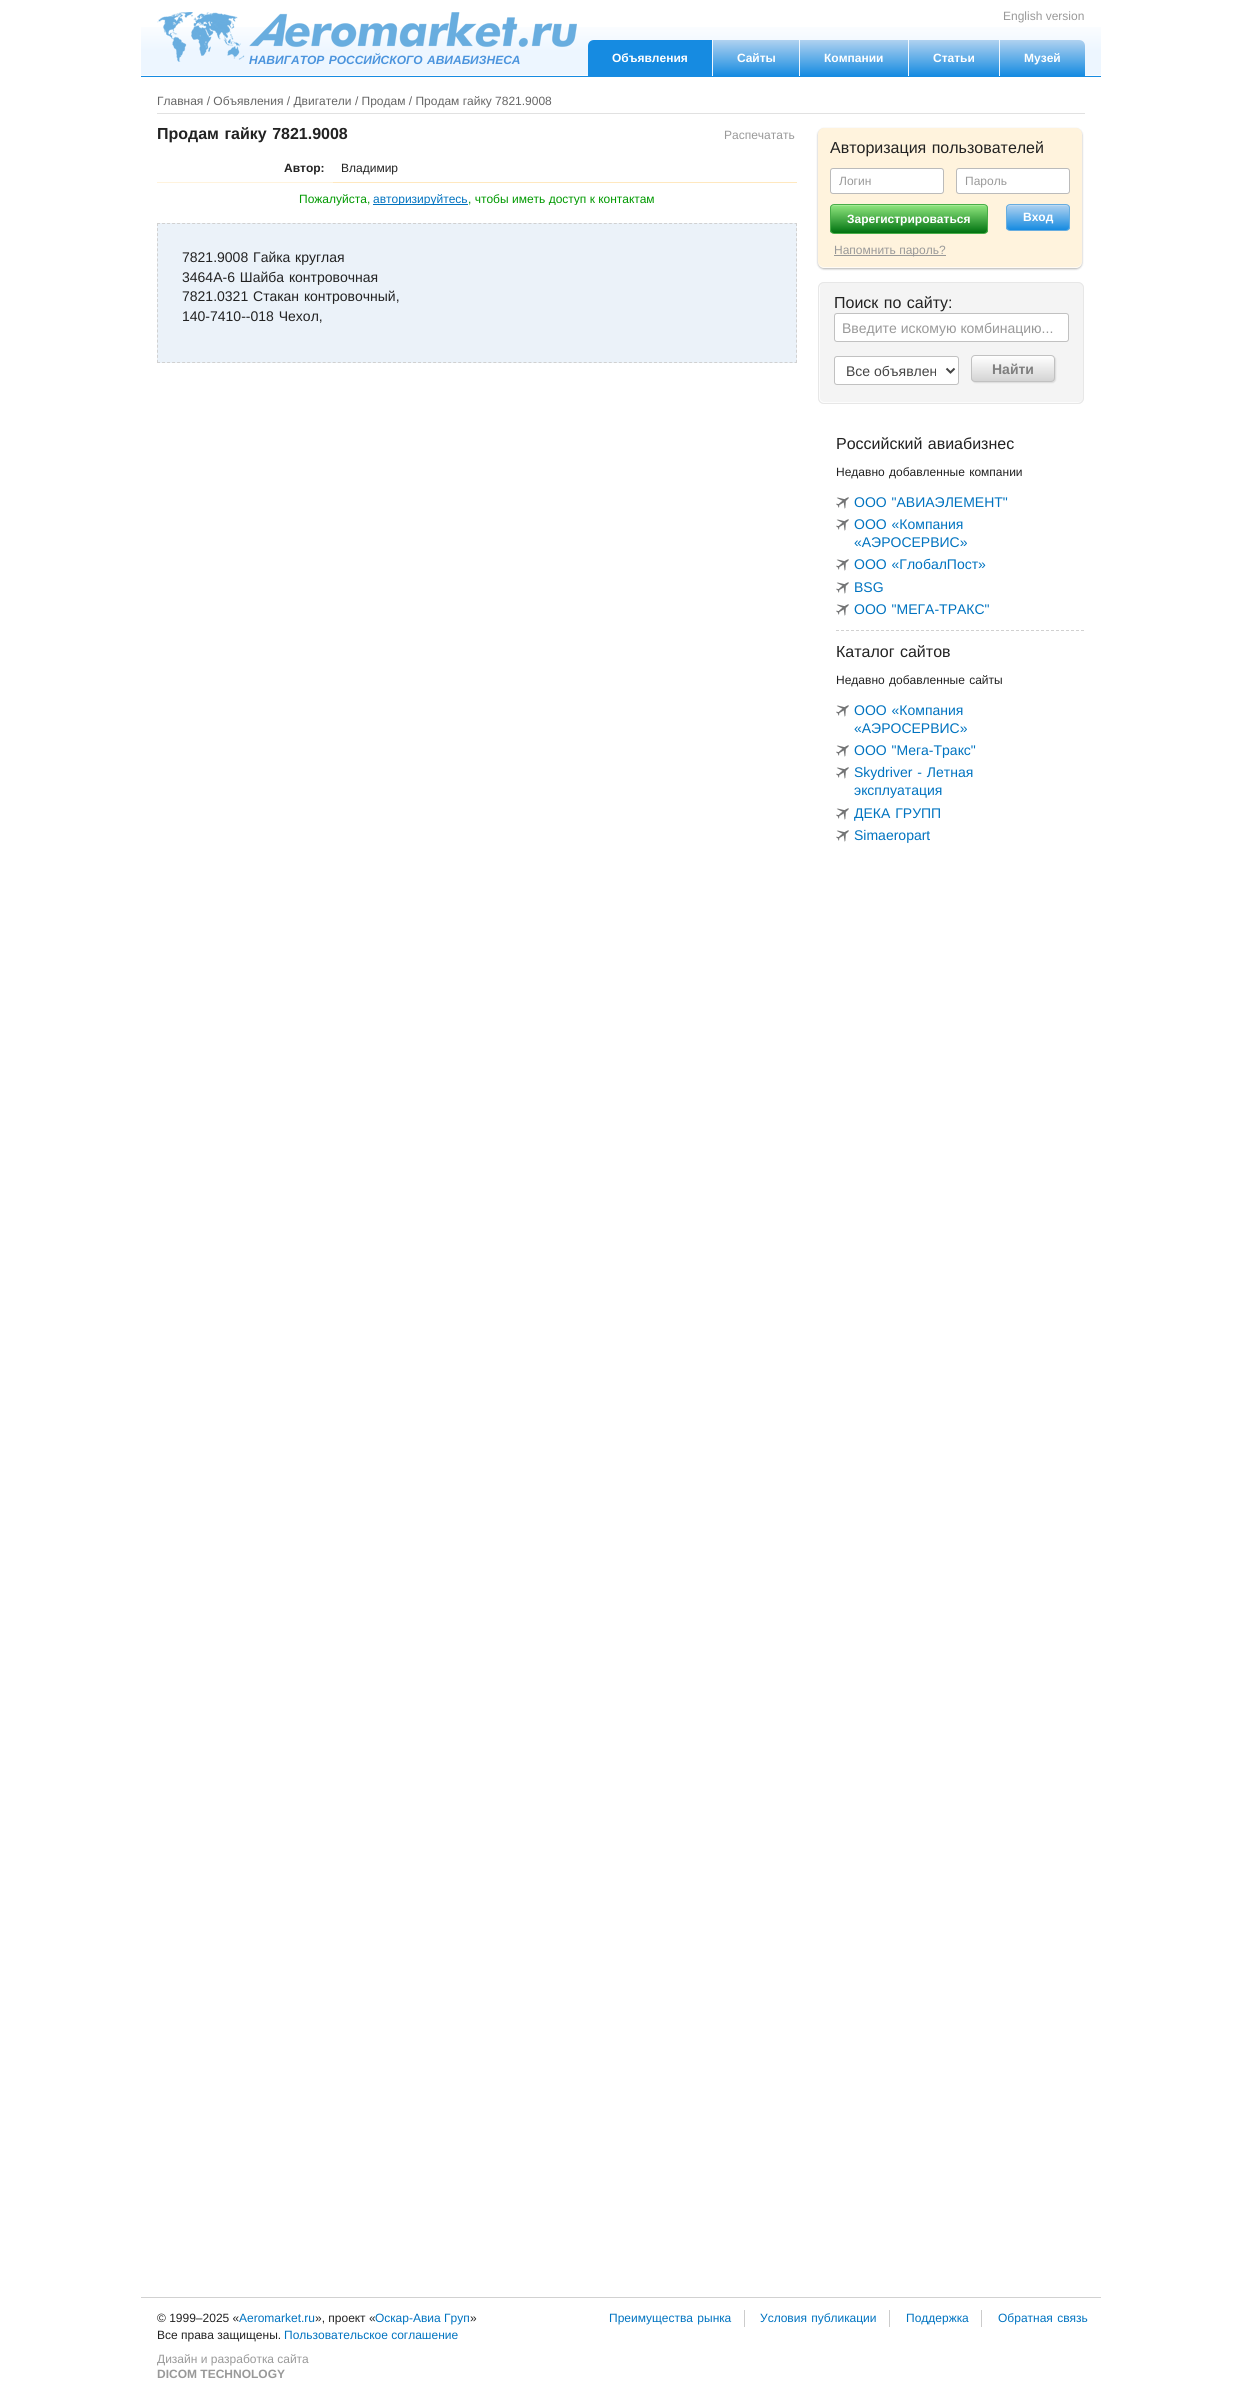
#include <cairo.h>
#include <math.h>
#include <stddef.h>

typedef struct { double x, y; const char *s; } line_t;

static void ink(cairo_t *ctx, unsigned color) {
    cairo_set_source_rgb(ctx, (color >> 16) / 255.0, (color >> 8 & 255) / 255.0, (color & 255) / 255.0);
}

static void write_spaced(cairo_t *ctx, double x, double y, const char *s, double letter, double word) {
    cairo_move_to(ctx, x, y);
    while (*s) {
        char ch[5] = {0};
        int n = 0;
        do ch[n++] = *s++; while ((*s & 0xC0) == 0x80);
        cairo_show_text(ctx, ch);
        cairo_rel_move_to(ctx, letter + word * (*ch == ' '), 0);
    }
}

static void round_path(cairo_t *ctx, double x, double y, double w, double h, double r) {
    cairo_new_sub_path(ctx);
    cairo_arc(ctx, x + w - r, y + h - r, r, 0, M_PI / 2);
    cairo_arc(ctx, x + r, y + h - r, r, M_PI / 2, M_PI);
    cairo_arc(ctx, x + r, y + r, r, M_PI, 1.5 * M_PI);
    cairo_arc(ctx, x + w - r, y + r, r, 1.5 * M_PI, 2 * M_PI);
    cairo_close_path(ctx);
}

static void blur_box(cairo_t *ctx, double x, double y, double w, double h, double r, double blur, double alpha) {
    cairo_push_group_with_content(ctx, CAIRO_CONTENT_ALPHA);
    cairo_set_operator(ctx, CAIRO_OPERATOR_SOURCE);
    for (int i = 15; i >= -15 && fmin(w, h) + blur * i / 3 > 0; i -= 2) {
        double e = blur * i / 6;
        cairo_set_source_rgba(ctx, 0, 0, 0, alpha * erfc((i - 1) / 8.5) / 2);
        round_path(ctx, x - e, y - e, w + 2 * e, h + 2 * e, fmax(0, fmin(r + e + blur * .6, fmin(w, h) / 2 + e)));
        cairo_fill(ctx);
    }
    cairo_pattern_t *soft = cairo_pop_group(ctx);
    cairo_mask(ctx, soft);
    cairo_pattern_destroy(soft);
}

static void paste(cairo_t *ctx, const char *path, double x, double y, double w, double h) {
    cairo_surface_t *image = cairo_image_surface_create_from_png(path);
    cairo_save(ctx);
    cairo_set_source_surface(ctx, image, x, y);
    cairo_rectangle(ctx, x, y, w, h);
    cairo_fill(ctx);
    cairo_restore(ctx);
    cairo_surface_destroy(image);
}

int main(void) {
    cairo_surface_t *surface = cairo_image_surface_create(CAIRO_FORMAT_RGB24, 1241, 2396);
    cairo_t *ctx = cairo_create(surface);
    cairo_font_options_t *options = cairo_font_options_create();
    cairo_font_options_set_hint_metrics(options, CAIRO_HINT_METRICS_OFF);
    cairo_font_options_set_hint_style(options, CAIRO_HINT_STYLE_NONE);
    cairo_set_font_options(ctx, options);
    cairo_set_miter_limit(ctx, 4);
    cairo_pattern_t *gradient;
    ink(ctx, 0xFFFFFF);
    cairo_paint(ctx);
    paste(ctx, "media/1.png", 141, 27, 960, 48);
    ink(ctx, 0xFAFCFF);
    cairo_rectangle(ctx, 141, 75, 960, 1);
    cairo_fill(ctx);
    ink(ctx, 0x168BE1);
    cairo_rectangle(ctx, 141, 76, 960, 1);
    cairo_fill(ctx);
    cairo_select_font_face(ctx, "Liberation Sans", CAIRO_FONT_SLANT_NORMAL, CAIRO_FONT_WEIGHT_NORMAL);
    cairo_set_font_size(ctx, 12);
    ink(ctx, 0x999999);
    cairo_move_to(ctx, 1003, 20);
    cairo_show_text(ctx, "English version");
    paste(ctx, "media/2.png", 157, 12, 420, 50);
    cairo_select_font_face(ctx, "Liberation Sans", CAIRO_FONT_SLANT_ITALIC, CAIRO_FONT_WEIGHT_BOLD);
    ink(ctx, 0x4B94DD);
    write_spaced(ctx, 249, 64, "НАВИГАТОР РОССИЙСКОГО АВИАБИЗНЕСА", 0, 1);
    ink(ctx, 0x168BE1);
    cairo_new_path(ctx);
    cairo_move_to(ctx, 594, 40);
    cairo_line_to(ctx, 712, 40);
    cairo_line_to(ctx, 712, 76);
    cairo_line_to(ctx, 588, 76);
    cairo_line_to(ctx, 588, 46);
    cairo_curve_to(ctx, 588, 42.5, 590.5, 40, 594, 40);
    cairo_close_path(ctx);
    cairo_fill(ctx);
    cairo_select_font_face(ctx, "Liberation Sans", CAIRO_FONT_SLANT_NORMAL, CAIRO_FONT_WEIGHT_BOLD);
    ink(ctx, 0xFFFFFF);
    cairo_move_to(ctx, 612, 62);
    cairo_show_text(ctx, "Объявления");
    gradient = cairo_pattern_create_linear(756, 40, 756, 76);
    cairo_pattern_add_color_stop_rgba(gradient, 0, 0.69, 0.824, 0.941, 1);
    cairo_pattern_add_color_stop_rgba(gradient, 1, 0.086, 0.545, 0.882, 1);
    cairo_set_source(ctx, gradient);
    cairo_pattern_destroy(gradient);
    cairo_rectangle(ctx, 713, 40, 86, 36);
    cairo_fill(ctx);
    ink(ctx, 0xFFFFFF);
    cairo_move_to(ctx, 737, 62);
    cairo_show_text(ctx, "Сайты");
    gradient = cairo_pattern_create_linear(854, 40, 854, 76);
    cairo_pattern_add_color_stop_rgba(gradient, 0, 0.69, 0.824, 0.941, 1);
    cairo_pattern_add_color_stop_rgba(gradient, 1, 0.086, 0.545, 0.882, 1);
    cairo_set_source(ctx, gradient);
    cairo_pattern_destroy(gradient);
    cairo_rectangle(ctx, 800, 40, 108, 36);
    cairo_fill(ctx);
    ink(ctx, 0xFFFFFF);
    cairo_move_to(ctx, 824, 62);
    cairo_show_text(ctx, "Компании");
    gradient = cairo_pattern_create_linear(954, 40, 954, 76);
    cairo_pattern_add_color_stop_rgba(gradient, 0, 0.69, 0.824, 0.941, 1);
    cairo_pattern_add_color_stop_rgba(gradient, 1, 0.086, 0.545, 0.882, 1);
    cairo_set_source(ctx, gradient);
    cairo_pattern_destroy(gradient);
    cairo_rectangle(ctx, 909, 40, 90, 36);
    cairo_fill(ctx);
    ink(ctx, 0xFFFFFF);
    cairo_move_to(ctx, 933, 62);
    cairo_show_text(ctx, "Статьи");
    gradient = cairo_pattern_create_linear(1043, 40, 1043, 76);
    cairo_pattern_add_color_stop_rgba(gradient, 0, 0.69, 0.824, 0.941, 1);
    cairo_pattern_add_color_stop_rgba(gradient, 1, 0.086, 0.545, 0.882, 1);
    cairo_set_source(ctx, gradient);
    cairo_pattern_destroy(gradient);
    cairo_new_path(ctx);
    cairo_move_to(ctx, 1000, 40);
    cairo_line_to(ctx, 1079, 40);
    cairo_curve_to(ctx, 1082.5, 40, 1085, 42.5, 1085, 46);
    cairo_line_to(ctx, 1085, 76);
    cairo_line_to(ctx, 1000, 76);
    cairo_close_path(ctx);
    cairo_fill(ctx);
    ink(ctx, 0xFFFFFF);
    cairo_move_to(ctx, 1024, 62);
    cairo_show_text(ctx, "Музей");
    ink(ctx, 0xE1E1E1);
    cairo_rectangle(ctx, 157, 113, 928, 1);
    cairo_fill(ctx);
    cairo_select_font_face(ctx, "Liberation Sans", CAIRO_FONT_SLANT_NORMAL, CAIRO_FONT_WEIGHT_NORMAL);
    ink(ctx, 0x666666);
    cairo_move_to(ctx, 157, 105);
    cairo_show_text(ctx, "Главная / Объявления / Двигатели / Продам / Продам гайку 7821.9008");
    cairo_select_font_face(ctx, "Liberation Sans", CAIRO_FONT_SLANT_NORMAL, CAIRO_FONT_WEIGHT_BOLD);
    cairo_set_font_size(ctx, 16);
    ink(ctx, 0x222222);
    write_spaced(ctx, 157, 139, "Продам гайку 7821.9008", 0, 1);
    cairo_select_font_face(ctx, "Liberation Sans", CAIRO_FONT_SLANT_NORMAL, CAIRO_FONT_WEIGHT_NORMAL);
    cairo_set_font_size(ctx, 12);
    ink(ctx, 0x999999);
    cairo_move_to(ctx, 724, 139);
    cairo_show_text(ctx, "Распечатать");
    ink(ctx, 0xFFE8BF);
    cairo_rectangle(ctx, 332, 182, 465, 1);
    cairo_fill(ctx);
    ink(ctx, 0xFFF3DD);
    cairo_rectangle(ctx, 157, 182, 176, 1);
    cairo_fill(ctx);
    cairo_select_font_face(ctx, "Liberation Sans", CAIRO_FONT_SLANT_NORMAL, CAIRO_FONT_WEIGHT_BOLD);
    ink(ctx, 0x222222);
    cairo_move_to(ctx, 284, 172);
    cairo_show_text(ctx, "Автор:");
    cairo_select_font_face(ctx, "Liberation Sans", CAIRO_FONT_SLANT_NORMAL, CAIRO_FONT_WEIGHT_NORMAL);
    cairo_move_to(ctx, 341, 172);
    cairo_show_text(ctx, "Владимир");
    ink(ctx, 0x009900);
    cairo_move_to(ctx, 299, 203);
    cairo_show_text(ctx, "Пожалуйста,");
    ink(ctx, 0x0073C0);
    cairo_rectangle(ctx, 373, 204, 95, 1);
    cairo_fill(ctx);
    cairo_save(ctx);
    cairo_rectangle(ctx, 157, 154, 640, 51);
    cairo_clip(ctx);
    cairo_move_to(ctx, 373, 203);
    cairo_show_text(ctx, "авторизируйтесь");
    ink(ctx, 0x009900);
    cairo_move_to(ctx, 468, 203);
    cairo_show_text(ctx, ", чтобы иметь доступ к контактам");
    cairo_restore(ctx);
    ink(ctx, 0xEBF2F9);
    cairo_rectangle(ctx, 157, 223, 640, 140);
    cairo_fill(ctx);
    cairo_new_path(ctx);
    cairo_move_to(ctx, 157, 223.5);
    cairo_line_to(ctx, 797, 223.5);
    ink(ctx, 0xD1D1D1);
    cairo_set_line_width(ctx, 1);
    cairo_set_dash(ctx, (double[]){3, 2.02}, 2, 0);
    cairo_stroke(ctx);
    cairo_new_path(ctx);
    cairo_move_to(ctx, 796.5, 223);
    cairo_line_to(ctx, 796.5, 363);
    cairo_set_dash(ctx, (double[]){3, 2.07}, 2, 0);
    cairo_stroke(ctx);
    cairo_new_path(ctx);
    cairo_move_to(ctx, 157, 362.5);
    cairo_line_to(ctx, 797, 362.5);
    cairo_set_dash(ctx, (double[]){3, 2.02}, 2, 0);
    cairo_stroke(ctx);
    cairo_new_path(ctx);
    cairo_move_to(ctx, 157.5, 223);
    cairo_line_to(ctx, 157.5, 363);
    cairo_set_dash(ctx, (double[]){3, 2.07}, 2, 0);
    cairo_stroke(ctx);
    cairo_set_font_size(ctx, 14);
    ink(ctx, 0x222222);
    {
        static const line_t items[] = {
            {182, 262, "7821.9008 Гайка круглая"},
            {182, 282, "3464А-6 Шайба контровочная"},
            {182, 301, "7821.0321 Стакан контровочный,"},
            {182, 321, "140-7410--018 Чехол,"},
        };
        for (size_t i = 0; i < sizeof items / sizeof *items; i++) {
            write_spaced(ctx, items[i].x, items[i].y, items[i].s, 0, 1);
        }
    }
    ink(ctx, 0x000000);
    blur_box(ctx, 818, 129, 264, 140, 6, 1, 0.3);
    ink(ctx, 0xFFF3DD);
    round_path(ctx, 818, 128, 264, 140, 6);
    cairo_fill(ctx);
    cairo_set_source_rgba(ctx, 1, 1, 1, 0.7);
    cairo_new_path(ctx);
    cairo_move_to(ctx, 818, 261);
    cairo_line_to(ctx, 818, 262);
    cairo_curve_to(ctx, 818, 265, 821, 268, 824, 268);
    cairo_line_to(ctx, 1076, 268);
    cairo_curve_to(ctx, 1079, 268, 1082, 265, 1082, 262);
    cairo_line_to(ctx, 1082, 261);
    cairo_curve_to(ctx, 1082, 264, 1079, 267, 1076, 267);
    cairo_line_to(ctx, 824, 267);
    cairo_curve_to(ctx, 821, 267, 818, 264, 818, 261);
    cairo_close_path(ctx);
    cairo_fill(ctx);
    cairo_set_font_size(ctx, 16);
    ink(ctx, 0x222222);
    write_spaced(ctx, 830, 153, "Авторизация пользователей", 0, 1);
    ink(ctx, 0xFFFFFF);
    round_path(ctx, 830.5, 168.5, 113, 25, 2.5);
    cairo_fill_preserve(ctx);
    ink(ctx, 0xBBBBBB);
    cairo_set_dash(ctx, NULL, 0, 0);
    cairo_stroke(ctx);
    cairo_set_font_size(ctx, 12);
    ink(ctx, 0x999999);
    cairo_move_to(ctx, 839, 185);
    cairo_show_text(ctx, "Логин");
    ink(ctx, 0xFFFFFF);
    round_path(ctx, 956.5, 168.5, 113, 25, 2.5);
    cairo_fill_preserve(ctx);
    ink(ctx, 0xBBBBBB);
    cairo_stroke(ctx);
    ink(ctx, 0x999999);
    cairo_move_to(ctx, 965, 185);
    cairo_show_text(ctx, "Пароль");
    cairo_save(ctx);
    round_path(ctx, 830, 204, 158, 30, 4);
    cairo_clip(ctx);
    gradient = cairo_pattern_create_linear(909, 205, 909, 233);
    cairo_pattern_add_color_stop_rgba(gradient, 0, 0.565, 0.902, 0.498, 1);
    cairo_pattern_add_color_stop_rgba(gradient, 1, 0, 0.447, 0.063, 1);
    cairo_set_source(ctx, gradient);
    cairo_pattern_destroy(gradient);
    cairo_rectangle(ctx, 830, 205, 158, 28);
    cairo_fill(ctx);
    cairo_restore(ctx);
    cairo_set_source_rgba(ctx, 1, 1, 1, 0.2);
    cairo_new_path(ctx);
    cairo_move_to(ctx, 834, 206);
    cairo_line_to(ctx, 984, 206);
    cairo_curve_to(ctx, 986, 206, 987, 207, 987, 209);
    cairo_curve_to(ctx, 987, 207, 986, 205, 984, 205);
    cairo_line_to(ctx, 833, 205);
    cairo_curve_to(ctx, 831, 205, 831, 207, 831, 209);
    cairo_curve_to(ctx, 831, 207, 832, 206, 834, 206);
    cairo_close_path(ctx);
    cairo_fill(ctx);
    round_path(ctx, 830.5, 204.5, 157, 29, 3.5);
    ink(ctx, 0x49AD48);
    cairo_stroke(ctx);
    cairo_select_font_face(ctx, "Liberation Sans", CAIRO_FONT_SLANT_NORMAL, CAIRO_FONT_WEIGHT_BOLD);
    ink(ctx, 0xFFFFFF);
    cairo_move_to(ctx, 847, 223);
    cairo_show_text(ctx, "Зарегистрироваться");
    ink(ctx, 0x999999);
    cairo_rectangle(ctx, 834, 255, 112, 1);
    cairo_fill(ctx);
    cairo_select_font_face(ctx, "Liberation Sans", CAIRO_FONT_SLANT_NORMAL, CAIRO_FONT_WEIGHT_NORMAL);
    cairo_move_to(ctx, 834, 254);
    cairo_show_text(ctx, "Напомнить пароль?");
    cairo_save(ctx);
    round_path(ctx, 1006, 204, 64, 27, 4);
    cairo_clip(ctx);
    gradient = cairo_pattern_create_linear(1038, 205, 1038, 230);
    cairo_pattern_add_color_stop_rgba(gradient, 0, 0.69, 0.824, 0.941, 1);
    cairo_pattern_add_color_stop_rgba(gradient, 1, 0.086, 0.545, 0.882, 1);
    cairo_set_source(ctx, gradient);
    cairo_pattern_destroy(gradient);
    cairo_rectangle(ctx, 1006, 205, 64, 25);
    cairo_fill(ctx);
    cairo_restore(ctx);
    ink(ctx, 0xBDDAF3);
    cairo_new_path(ctx);
    cairo_move_to(ctx, 1010, 206);
    cairo_line_to(ctx, 1066, 206);
    cairo_curve_to(ctx, 1068, 206, 1069, 207, 1069, 209);
    cairo_curve_to(ctx, 1069, 203, 1061, 205, 1057, 205);
    cairo_line_to(ctx, 1019, 205);
    cairo_curve_to(ctx, 1015, 205, 1007, 203, 1007, 209);
    cairo_curve_to(ctx, 1007, 207, 1008, 206, 1010, 206);
    cairo_close_path(ctx);
    cairo_fill(ctx);
    round_path(ctx, 1006.5, 204.5, 63, 26, 3.5);
    ink(ctx, 0x68ADDF);
    cairo_stroke(ctx);
    cairo_select_font_face(ctx, "Liberation Sans", CAIRO_FONT_SLANT_NORMAL, CAIRO_FONT_WEIGHT_BOLD);
    ink(ctx, 0xFFFFFF);
    cairo_move_to(ctx, 1023, 221);
    cairo_show_text(ctx, "Вход");
    ink(ctx, 0xF4F4F4);
    round_path(ctx, 818, 282, 266, 122, 6);
    cairo_fill(ctx);
    ink(ctx, 0xFCFCFC);
    cairo_new_path(ctx);
    cairo_move_to(ctx, 821, 284);
    cairo_curve_to(ctx, 820, 285, 819, 287, 819, 288);
    cairo_line_to(ctx, 819, 398);
    cairo_curve_to(ctx, 819, 401, 821, 403, 824, 403);
    cairo_line_to(ctx, 1078, 403);
    cairo_curve_to(ctx, 1079, 403, 1081, 402, 1082, 401);
    cairo_line_to(ctx, 1079, 402);
    cairo_line_to(ctx, 825, 402);
    cairo_curve_to(ctx, 822, 402, 820, 400, 820, 397);
    cairo_line_to(ctx, 820, 287);
    cairo_close_path(ctx);
    cairo_fill(ctx);
    round_path(ctx, 818.5, 282.5, 265, 121, 5.5);
    ink(ctx, 0xE7E7E7);
    cairo_stroke(ctx);
    cairo_select_font_face(ctx, "Liberation Sans", CAIRO_FONT_SLANT_NORMAL, CAIRO_FONT_WEIGHT_NORMAL);
    cairo_set_font_size(ctx, 16);
    ink(ctx, 0x222222);
    write_spaced(ctx, 834, 308, "Поиск по сайту:", 0, 1);
    ink(ctx, 0xFFFFFF);
    round_path(ctx, 834.5, 313.5, 234, 28, 2.5);
    cairo_fill_preserve(ctx);
    ink(ctx, 0xC1C1C1);
    cairo_stroke(ctx);
    cairo_set_font_size(ctx, 14);
    ink(ctx, 0x999999);
    cairo_move_to(ctx, 842, 333);
    cairo_show_text(ctx, "Введите искомую комбинацию...");
    ink(ctx, 0xFFFFFF);
    round_path(ctx, 834.5, 356.5, 124, 28, 2.5);
    cairo_fill_preserve(ctx);
    ink(ctx, 0xC1C1C1);
    cairo_stroke(ctx);
    cairo_new_path(ctx);
    cairo_move_to(ctx, 946.5, 368.5);
    cairo_line_to(ctx, 950.5, 372.5);
    cairo_line_to(ctx, 954.5, 368.5);
    ink(ctx, 0x444444);
    cairo_set_line_width(ctx, 2);
    cairo_stroke(ctx);
    cairo_save(ctx);
    cairo_rectangle(ctx, 846, 362, 90, 18);
    cairo_clip(ctx);
    cairo_move_to(ctx, 846, 376);
    cairo_show_text(ctx, "Все объявлен");
    cairo_restore(ctx);
    ink(ctx, 0x000000);
    blur_box(ctx, 972, 356, 84, 27, 4, 0.5, 0.1);
    cairo_save(ctx);
    round_path(ctx, 971, 355, 84, 27, 4);
    cairo_clip(ctx);
    gradient = cairo_pattern_create_linear(1013, 356, 1013, 381);
    cairo_pattern_add_color_stop_rgba(gradient, 0, 1, 1, 1, 1);
    cairo_pattern_add_color_stop_rgba(gradient, 1, 0.831, 0.831, 0.831, 1);
    cairo_set_source(ctx, gradient);
    cairo_pattern_destroy(gradient);
    cairo_rectangle(ctx, 971, 356, 84, 25);
    cairo_fill(ctx);
    cairo_restore(ctx);
    round_path(ctx, 971.5, 355.5, 83, 26, 3.5);
    ink(ctx, 0xC1C1C1);
    cairo_set_line_width(ctx, 1);
    cairo_stroke(ctx);
    cairo_select_font_face(ctx, "Liberation Sans", CAIRO_FONT_SLANT_NORMAL, CAIRO_FONT_WEIGHT_BOLD);
    ink(ctx, 0x7F7F7F);
    cairo_move_to(ctx, 992, 374);
    cairo_show_text(ctx, "Найти");
    cairo_select_font_face(ctx, "Liberation Sans", CAIRO_FONT_SLANT_NORMAL, CAIRO_FONT_WEIGHT_NORMAL);
    cairo_set_font_size(ctx, 16);
    ink(ctx, 0x222222);
    write_spaced(ctx, 836, 449, "Российский авиабизнес", 0, 1);
    cairo_set_font_size(ctx, 12);
    write_spaced(ctx, 836, 476, "Недавно добавленные компании", 0, 1);
    paste(ctx, "media/3.png", 836, 497, 13, 12);
    cairo_set_font_size(ctx, 14);
    ink(ctx, 0x0073C0);
    write_spaced(ctx, 854, 507, "ООО \"АВИАЭЛЕМЕНТ\"", 0, 1);
    paste(ctx, "media/3.png", 836, 519, 13, 12);
    write_spaced(ctx, 854, 529, "ООО «Компания", 0, 1);
    cairo_move_to(ctx, 854, 547);
    cairo_show_text(ctx, "«АЭРОСЕРВИС»");
    paste(ctx, "media/3.png", 836, 559, 13, 12);
    write_spaced(ctx, 854, 569, "ООО «ГлобалПост»", 0, 1);
    paste(ctx, "media/3.png", 836, 582, 13, 12);
    cairo_move_to(ctx, 854, 592);
    cairo_show_text(ctx, "BSG");
    paste(ctx, "media/3.png", 836, 604, 13, 12);
    write_spaced(ctx, 854, 614, "ООО \"МЕГА-ТРАКС\"", 0, 1);
    cairo_new_path(ctx);
    cairo_move_to(ctx, 836, 630.5);
    cairo_line_to(ctx, 1084, 630.5);
    ink(ctx, 0xD1D1D1);
    cairo_set_dash(ctx, (double[]){3, 2}, 2, 0);
    cairo_stroke(ctx);
    cairo_set_font_size(ctx, 16);
    ink(ctx, 0x222222);
    write_spaced(ctx, 836, 657, "Каталог сайтов", 0, 1);
    cairo_set_font_size(ctx, 12);
    write_spaced(ctx, 836, 684, "Недавно добавленные сайты", 0, 1);
    paste(ctx, "media/3.png", 836, 705, 13, 12);
    cairo_set_font_size(ctx, 14);
    ink(ctx, 0x0073C0);
    write_spaced(ctx, 854, 715, "ООО «Компания", 0, 1);
    cairo_move_to(ctx, 854, 733);
    cairo_show_text(ctx, "«АЭРОСЕРВИС»");
    paste(ctx, "media/3.png", 836, 745, 13, 12);
    write_spaced(ctx, 854, 755, "ООО \"Мега-Тракс\"", 0, 1);
    paste(ctx, "media/3.png", 836, 767, 13, 12);
    write_spaced(ctx, 854, 777, "Skydriver - Летная", 0, 1);
    cairo_move_to(ctx, 854, 795);
    cairo_show_text(ctx, "эксплуатация");
    paste(ctx, "media/3.png", 836, 808, 13, 12);
    write_spaced(ctx, 854, 818, "ДЕКА ГРУПП", 0, 1);
    paste(ctx, "media/3.png", 836, 830, 13, 12);
    cairo_move_to(ctx, 854, 840);
    cairo_show_text(ctx, "Simaeropart");
    ink(ctx, 0xD1D1D1);
    cairo_rectangle(ctx, 141, 2297, 960, 1);
    cairo_fill(ctx);
    cairo_set_font_size(ctx, 12);
    ink(ctx, 0x222222);
    cairo_move_to(ctx, 157, 2322);
    cairo_show_text(ctx, "© 1999–2025 «");
    ink(ctx, 0x0073C0);
    cairo_move_to(ctx, 239, 2322);
    cairo_show_text(ctx, "Aeromarket.ru");
    ink(ctx, 0x222222);
    cairo_move_to(ctx, 315, 2322);
    cairo_show_text(ctx, "», проект «");
    ink(ctx, 0x0073C0);
    cairo_move_to(ctx, 375, 2322);
    cairo_show_text(ctx, "Оскар-Авиа Груп");
    ink(ctx, 0x222222);
    cairo_move_to(ctx, 470, 2322);
    cairo_show_text(ctx, "»");
    cairo_move_to(ctx, 157, 2339);
    cairo_show_text(ctx, "Все права защищены.");
    ink(ctx, 0x0073C0);
    cairo_move_to(ctx, 284, 2339);
    cairo_show_text(ctx, "Пользовательское соглашение");
    ink(ctx, 0x999999);
    cairo_move_to(ctx, 157, 2363);
    cairo_show_text(ctx, "Дизайн и разработка сайта");
    cairo_select_font_face(ctx, "Liberation Sans", CAIRO_FONT_SLANT_NORMAL, CAIRO_FONT_WEIGHT_BOLD);
    cairo_move_to(ctx, 157, 2378);
    cairo_show_text(ctx, "DICOM TECHNOLOGY");
    ink(ctx, 0xCCCCCC);
    cairo_rectangle(ctx, 744, 2310, 1, 17);
    cairo_fill(ctx);
    cairo_select_font_face(ctx, "Liberation Sans", CAIRO_FONT_SLANT_NORMAL, CAIRO_FONT_WEIGHT_NORMAL);
    ink(ctx, 0x0073C0);
    write_spaced(ctx, 609, 2322, "Преимущества рынка", 0, 1);
    ink(ctx, 0xCCCCCC);
    cairo_rectangle(ctx, 889, 2310, 1, 17);
    cairo_fill(ctx);
    ink(ctx, 0x0073C0);
    write_spaced(ctx, 760, 2322, "Условия публикации", 0, 1);
    ink(ctx, 0xCCCCCC);
    cairo_rectangle(ctx, 981, 2310, 1, 17);
    cairo_fill(ctx);
    ink(ctx, 0x0073C0);
    cairo_move_to(ctx, 906, 2322);
    cairo_show_text(ctx, "Поддержка");
    write_spaced(ctx, 998, 2322, "Обратная связь", 0, 1);
    cairo_surface_write_to_png(surface, "image.png");
    cairo_font_options_destroy(options);
    cairo_destroy(ctx);
    cairo_surface_destroy(surface);
    return 0;
}
